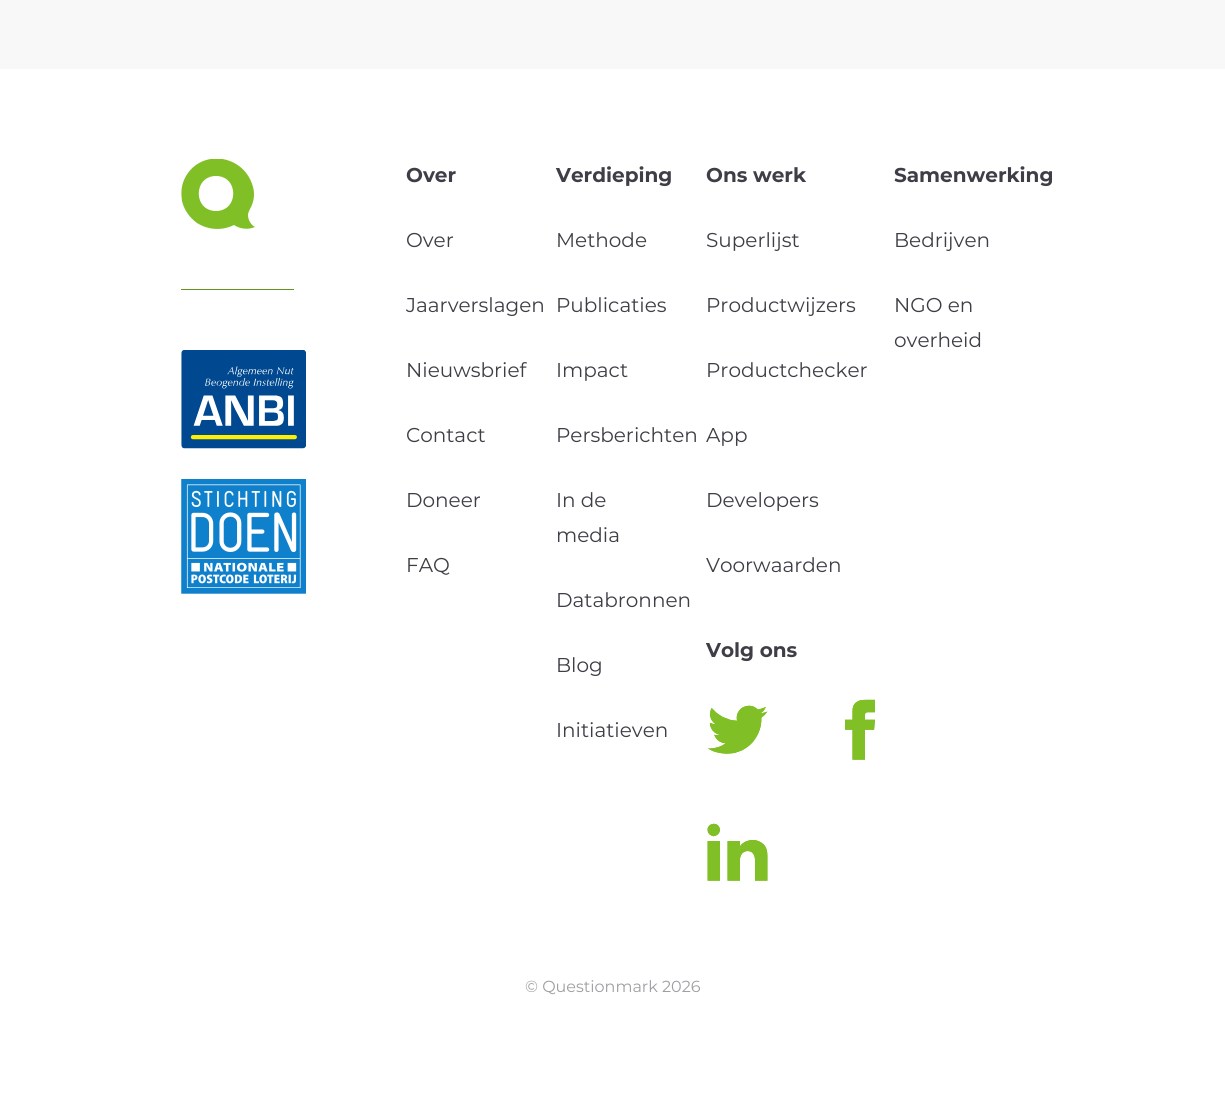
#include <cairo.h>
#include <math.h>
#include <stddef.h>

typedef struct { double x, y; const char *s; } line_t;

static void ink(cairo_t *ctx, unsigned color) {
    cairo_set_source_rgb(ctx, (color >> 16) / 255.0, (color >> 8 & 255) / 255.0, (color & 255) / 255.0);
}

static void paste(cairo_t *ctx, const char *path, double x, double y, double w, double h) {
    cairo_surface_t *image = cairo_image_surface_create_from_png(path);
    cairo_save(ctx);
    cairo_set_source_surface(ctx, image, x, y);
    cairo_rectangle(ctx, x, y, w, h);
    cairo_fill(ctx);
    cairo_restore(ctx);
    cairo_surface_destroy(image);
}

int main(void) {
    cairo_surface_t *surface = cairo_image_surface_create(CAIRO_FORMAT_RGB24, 1225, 1120);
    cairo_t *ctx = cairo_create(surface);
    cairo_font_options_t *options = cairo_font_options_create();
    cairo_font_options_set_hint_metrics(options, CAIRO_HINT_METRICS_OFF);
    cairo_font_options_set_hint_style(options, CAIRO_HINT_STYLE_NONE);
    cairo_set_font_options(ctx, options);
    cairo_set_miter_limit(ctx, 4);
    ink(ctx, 0xF8F8F8);
    cairo_paint(ctx);
    ink(ctx, 0xFFFFFF);
    cairo_rectangle(ctx, 0, 69, 1225, 1051);
    cairo_fill(ctx);
    ink(ctx, 0x63941E);
    cairo_rectangle(ctx, 181, 289, 113, 1);
    cairo_fill(ctx);
    cairo_save(ctx);
    cairo_rectangle(ctx, 181, 159, 74, 70);
    cairo_clip(ctx);
    ink(ctx, 0x80BF26);
    cairo_set_fill_rule(ctx, CAIRO_FILL_RULE_EVEN_ODD);
    cairo_new_path(ctx);
    cairo_move_to(ctx, 248, 215);
    cairo_curve_to(ctx, 248, 213, 249, 211, 250, 209);
    cairo_curve_to(ctx, 254, 202, 255, 194, 253, 187);
    cairo_curve_to(ctx, 244, 153, 198, 148, 184, 180);
    cairo_curve_to(ctx, 181, 187, 181, 194, 182, 201);
    cairo_curve_to(ctx, 184, 210, 190, 218, 197, 223);
    cairo_curve_to(ctx, 208, 230, 222, 231, 234, 225);
    cairo_curve_to(ctx, 240, 229, 248, 230, 255, 227);
    cairo_curve_to(ctx, 251, 225, 248, 220, 248, 215);
    cairo_move_to(ctx, 216, 211);
    cairo_curve_to(ctx, 193, 211, 193, 176, 216, 176);
    cairo_curve_to(ctx, 239, 176, 239, 211, 216, 211);
    cairo_fill(ctx);
    cairo_restore(ctx);
    paste(ctx, "media/1.png", 181, 350, 125, 99);
    paste(ctx, "media/2.png", 181, 479, 125, 115);
    cairo_select_font_face(ctx, "Montserrat", CAIRO_FONT_SLANT_NORMAL, CAIRO_FONT_WEIGHT_BOLD);
    cairo_set_font_size(ctx, 20);
    ink(ctx, 0x3F3E47);
    cairo_move_to(ctx, 406, 182);
    cairo_show_text(ctx, "Over");
    cairo_select_font_face(ctx, "Montserrat", CAIRO_FONT_SLANT_NORMAL, CAIRO_FONT_WEIGHT_NORMAL);
    {
        static const line_t items[] = {
            {406, 247, "Over"},
            {406, 312, "Jaarverslagen"},
            {406, 377, "Nieuwsbrief"},
            {406, 442, "Contact"},
            {406, 507, "Doneer"},
            {406, 572, "FAQ"},
        };
        for (size_t i = 0; i < sizeof items / sizeof *items; i++) {
            cairo_move_to(ctx, items[i].x, items[i].y);
            cairo_show_text(ctx, items[i].s);
        }
    }
    cairo_select_font_face(ctx, "Montserrat", CAIRO_FONT_SLANT_NORMAL, CAIRO_FONT_WEIGHT_BOLD);
    cairo_move_to(ctx, 556, 182);
    cairo_show_text(ctx, "Verdieping");
    cairo_select_font_face(ctx, "Montserrat", CAIRO_FONT_SLANT_NORMAL, CAIRO_FONT_WEIGHT_NORMAL);
    {
        static const line_t items[] = {
            {556, 247, "Methode"},
            {556, 312, "Publicaties"},
            {556, 377, "Impact"},
            {556, 442, "Persberichten"},
            {556, 507, "In de"},
            {556, 542, "media"},
            {556, 607, "Databronnen"},
            {556, 672, "Blog"},
            {556, 737, "Initiatieven"},
        };
        for (size_t i = 0; i < sizeof items / sizeof *items; i++) {
            cairo_move_to(ctx, items[i].x, items[i].y);
            cairo_show_text(ctx, items[i].s);
        }
    }
    cairo_select_font_face(ctx, "Montserrat", CAIRO_FONT_SLANT_NORMAL, CAIRO_FONT_WEIGHT_BOLD);
    cairo_move_to(ctx, 706, 182);
    cairo_show_text(ctx, "Ons werk");
    cairo_select_font_face(ctx, "Montserrat", CAIRO_FONT_SLANT_NORMAL, CAIRO_FONT_WEIGHT_NORMAL);
    {
        static const line_t items[] = {
            {706, 247, "Superlijst"},
            {706, 312, "Productwijzers"},
            {706, 377, "Productchecker"},
            {706, 442, "App"},
            {706, 507, "Developers"},
            {706, 572, "Voorwaarden"},
        };
        for (size_t i = 0; i < sizeof items / sizeof *items; i++) {
            cairo_move_to(ctx, items[i].x, items[i].y);
            cairo_show_text(ctx, items[i].s);
        }
    }
    cairo_select_font_face(ctx, "Montserrat", CAIRO_FONT_SLANT_NORMAL, CAIRO_FONT_WEIGHT_BOLD);
    cairo_move_to(ctx, 894, 182);
    cairo_show_text(ctx, "Samenwerking");
    cairo_select_font_face(ctx, "Montserrat", CAIRO_FONT_SLANT_NORMAL, CAIRO_FONT_WEIGHT_NORMAL);
    {
        static const line_t items[] = {
            {894, 247, "Bedrijven"},
            {894, 312, "NGO en"},
            {894, 347, "overheid"},
        };
        for (size_t i = 0; i < sizeof items / sizeof *items; i++) {
            cairo_move_to(ctx, items[i].x, items[i].y);
            cairo_show_text(ctx, items[i].s);
        }
    }
    cairo_select_font_face(ctx, "Montserrat", CAIRO_FONT_SLANT_NORMAL, CAIRO_FONT_WEIGHT_BOLD);
    cairo_move_to(ctx, 706, 657);
    cairo_show_text(ctx, "Volg ons");
    paste(ctx, "media/3.png", 707, 705, 61, 49);
    paste(ctx, "media/4.png", 845, 699, 30, 61);
    paste(ctx, "media/5.png", 707, 823, 61, 58);
    cairo_select_font_face(ctx, "Montserrat", CAIRO_FONT_SLANT_NORMAL, CAIRO_FONT_WEIGHT_NORMAL);
    cairo_set_font_size(ctx, 16);
    ink(ctx, 0x9F9FA3);
    cairo_move_to(ctx, 525, 992);
    cairo_show_text(ctx, "© Questionmark 2026");
    cairo_surface_write_to_png(surface, "image.png");
    cairo_font_options_destroy(options);
    cairo_destroy(ctx);
    cairo_surface_destroy(surface);
    return 0;
}
